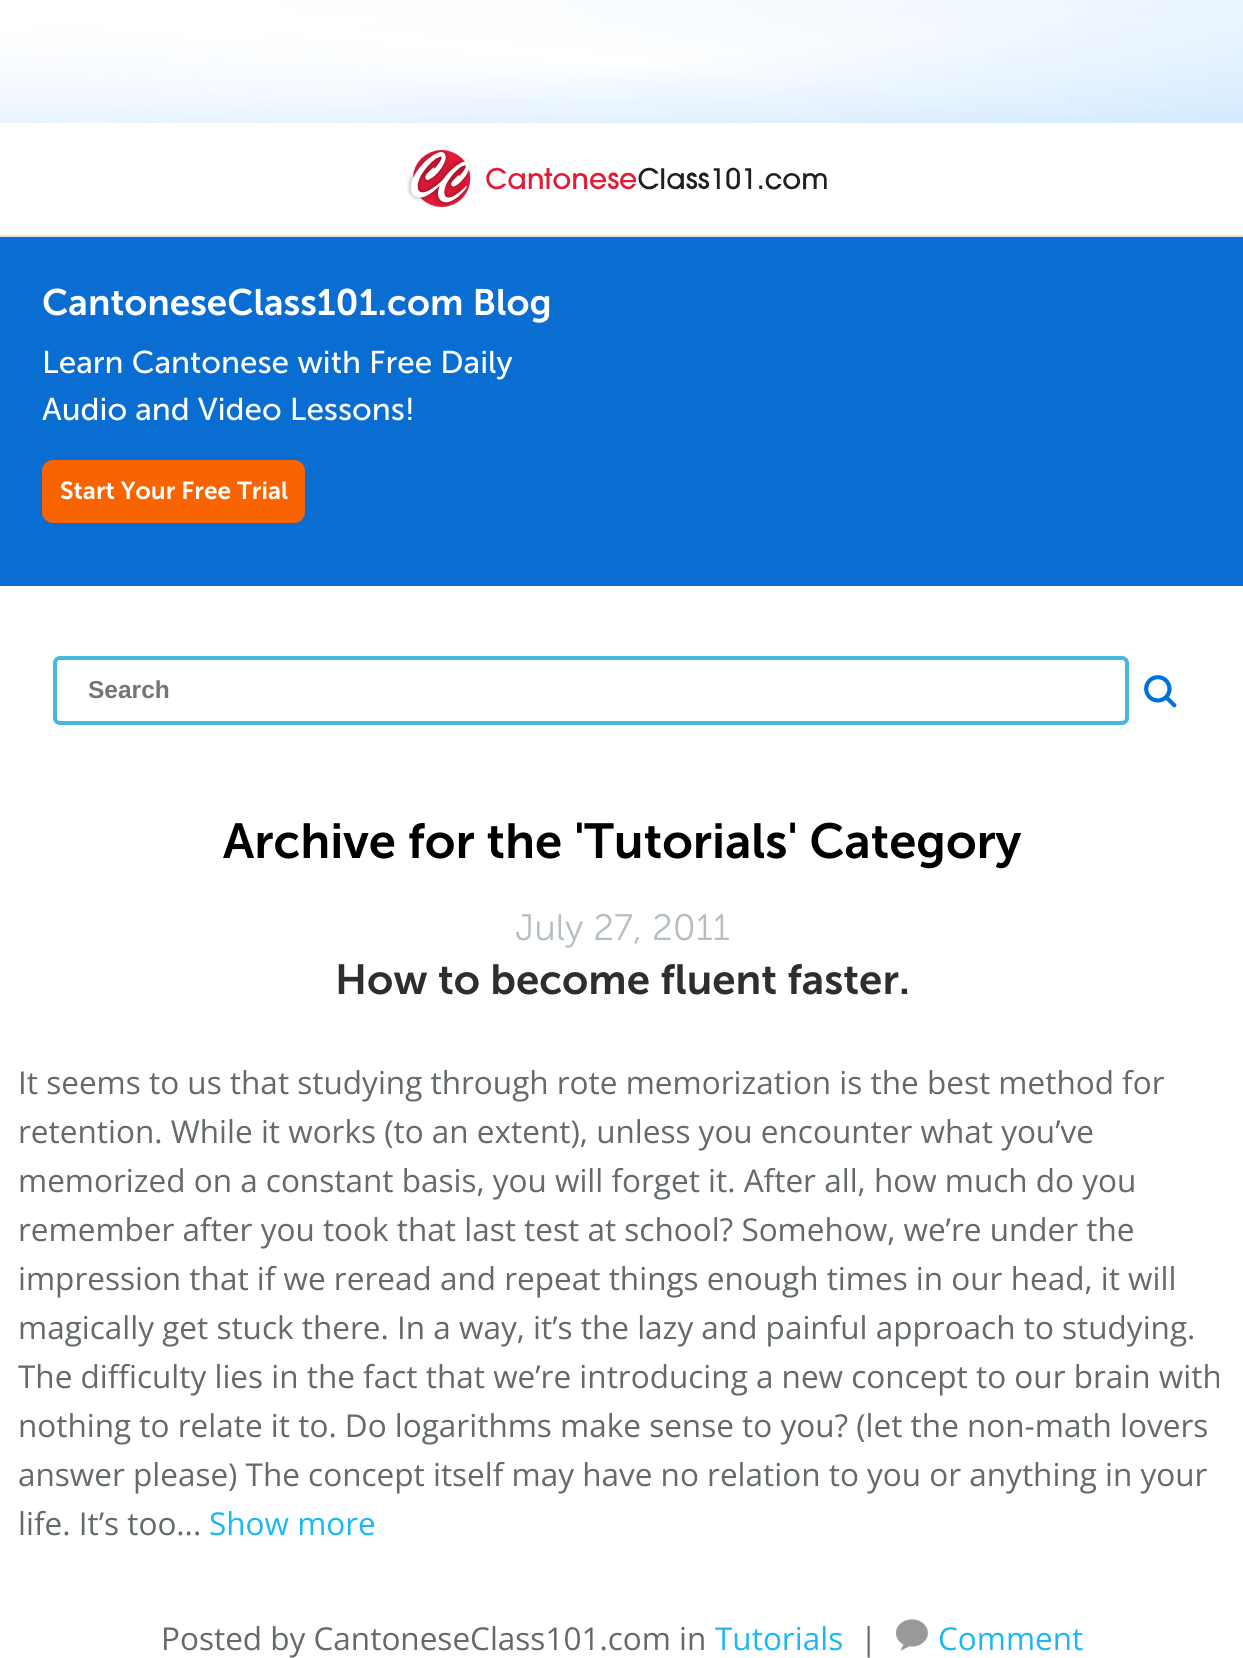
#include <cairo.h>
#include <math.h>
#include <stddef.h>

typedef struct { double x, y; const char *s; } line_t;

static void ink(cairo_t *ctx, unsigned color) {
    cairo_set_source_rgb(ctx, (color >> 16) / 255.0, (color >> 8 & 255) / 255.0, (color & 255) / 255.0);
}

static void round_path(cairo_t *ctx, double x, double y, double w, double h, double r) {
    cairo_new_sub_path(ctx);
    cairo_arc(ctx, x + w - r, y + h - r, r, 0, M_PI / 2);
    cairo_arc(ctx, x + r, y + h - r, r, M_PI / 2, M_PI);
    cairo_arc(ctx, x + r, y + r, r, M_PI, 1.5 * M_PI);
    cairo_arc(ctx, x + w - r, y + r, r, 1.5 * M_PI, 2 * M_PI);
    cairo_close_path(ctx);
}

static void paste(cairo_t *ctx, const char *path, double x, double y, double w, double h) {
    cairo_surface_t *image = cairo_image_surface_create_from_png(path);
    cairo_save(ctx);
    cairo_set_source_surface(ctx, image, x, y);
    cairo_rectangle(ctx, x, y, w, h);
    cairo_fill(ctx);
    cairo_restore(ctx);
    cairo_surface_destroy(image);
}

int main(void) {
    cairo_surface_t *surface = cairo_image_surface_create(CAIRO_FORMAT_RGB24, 1243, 1658);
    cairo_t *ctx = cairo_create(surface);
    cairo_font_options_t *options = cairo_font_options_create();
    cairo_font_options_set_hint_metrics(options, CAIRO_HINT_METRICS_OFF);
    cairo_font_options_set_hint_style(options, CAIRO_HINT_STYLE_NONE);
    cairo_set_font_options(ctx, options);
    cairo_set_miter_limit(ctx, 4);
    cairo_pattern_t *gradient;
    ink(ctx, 0xFFFFFF);
    cairo_paint(ctx);
    gradient = cairo_pattern_create_linear(610, 183, 634, -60);
    cairo_pattern_add_color_stop_rgba(gradient, 0, 0.914, 0.957, 1, 1);
    cairo_pattern_add_color_stop_rgba(gradient, 0.5, 1, 1, 1, 1);
    cairo_pattern_add_color_stop_rgba(gradient, 1, 0.914, 0.957, 1, 1);
    cairo_set_source(ctx, gradient);
    cairo_pattern_destroy(gradient);
    cairo_rectangle(ctx, 0, 0, 1243, 123);
    cairo_fill(ctx);
    gradient = cairo_pattern_create_linear(634, 183, 610, -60);
    cairo_pattern_add_color_stop_rgba(gradient, 0, 0.824, 0.914, 1, 1);
    cairo_pattern_add_color_stop_rgba(gradient, 0.5, 0.824, 0.914, 1, 0);
    cairo_pattern_add_color_stop_rgba(gradient, 0.5, 1, 1, 1, 0);
    cairo_pattern_add_color_stop_rgba(gradient, 1, 1, 1, 1, 1);
    cairo_set_source(ctx, gradient);
    cairo_pattern_destroy(gradient);
    cairo_rectangle(ctx, 0, 0, 1243, 123);
    cairo_fill(ctx);
    ink(ctx, 0xE3E3E3);
    cairo_rectangle(ctx, 0, 235, 1243, 2);
    cairo_fill(ctx);
    paste(ctx, "media/1.png", 407, 149, 420, 58);
    ink(ctx, 0x0A6DD2);
    cairo_rectangle(ctx, 0, 237, 1243, 349);
    cairo_fill(ctx);
    cairo_select_font_face(ctx, "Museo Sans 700 SemiBold", CAIRO_FONT_SLANT_NORMAL, CAIRO_FONT_WEIGHT_NORMAL);
    cairo_set_font_size(ctx, 36.75);
    ink(ctx, 0xFFFFFF);
    cairo_move_to(ctx, 42, 315);
    cairo_show_text(ctx, "CantoneseClass101.com Blog");
    cairo_select_font_face(ctx, "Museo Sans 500", CAIRO_FONT_SLANT_NORMAL, CAIRO_FONT_WEIGHT_NORMAL);
    cairo_set_font_size(ctx, 31.5);
    cairo_move_to(ctx, 42, 373);
    cairo_show_text(ctx, "Learn Cantonese with Free Daily");
    cairo_move_to(ctx, 42, 420);
    cairo_show_text(ctx, "Audio and Video Lessons!");
    ink(ctx, 0xFA6400);
    round_path(ctx, 42, 460, 263, 63, 11);
    cairo_fill(ctx);
    cairo_select_font_face(ctx, "Museo Sans 700 SemiBold", CAIRO_FONT_SLANT_NORMAL, CAIRO_FONT_WEIGHT_NORMAL);
    cairo_set_font_size(ctx, 24.5);
    ink(ctx, 0xFFFFFF);
    cairo_move_to(ctx, 60, 499);
    cairo_show_text(ctx, "Start Your Free Trial");
    round_path(ctx, 55, 658, 1072, 65, 5);
    ink(ctx, 0x45B9DD);
    cairo_set_line_width(ctx, 4);
    cairo_stroke(ctx);
    cairo_select_font_face(ctx, "Liberation Sans", CAIRO_FONT_SLANT_NORMAL, CAIRO_FONT_WEIGHT_BOLD);
    ink(ctx, 0x757575);
    cairo_move_to(ctx, 88, 698);
    cairo_show_text(ctx, "Search");
    paste(ctx, "media/2.png", 1144, 675, 33, 33);
    cairo_select_font_face(ctx, "Museo Sans 700 SemiBold", CAIRO_FONT_SLANT_NORMAL, CAIRO_FONT_WEIGHT_NORMAL);
    cairo_set_font_size(ctx, 49);
    ink(ctx, 0x000000);
    cairo_move_to(ctx, 223, 858);
    cairo_show_text(ctx, "Archive for the 'Tutorials' Category");
    cairo_select_font_face(ctx, "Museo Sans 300 Light", CAIRO_FONT_SLANT_NORMAL, CAIRO_FONT_WEIGHT_NORMAL);
    cairo_set_font_size(ctx, 36.75);
    ink(ctx, 0xB4BEC4);
    cairo_move_to(ctx, 515, 940);
    cairo_show_text(ctx, "July 27, 2011");
    cairo_select_font_face(ctx, "Museo Sans 700 SemiBold", CAIRO_FONT_SLANT_NORMAL, CAIRO_FONT_WEIGHT_NORMAL);
    cairo_set_font_size(ctx, 42);
    ink(ctx, 0x2E2E2E);
    cairo_move_to(ctx, 335, 994);
    cairo_show_text(ctx, "How to become fluent faster.");
    cairo_select_font_face(ctx, "Open Sans", CAIRO_FONT_SLANT_NORMAL, CAIRO_FONT_WEIGHT_NORMAL);
    cairo_set_font_size(ctx, 31.5);
    ink(ctx, 0x63696C);
    {
        static const line_t items[] = {
            {18, 1094, "It seems to us that studying through rote memorization is the best method for"},
            {18, 1143, "retention. While it works (to an extent), unless you encounter what you’ve"},
            {18, 1192, "memorized on a constant basis, you will forget it. After all, how much do you"},
            {18, 1241, "remember after you took that last test at school? Somehow, we’re under the"},
            {18, 1290, "impression that if we reread and repeat things enough times in our head, it will"},
            {18, 1339, "magically get stuck there. In a way, it’s the lazy and painful approach to studying."},
            {18, 1388, "The difficulty lies in the fact that we’re introducing a new concept to our brain with"},
            {18, 1437, "nothing to relate it to. Do logarithms make sense to you? (let the non-math lovers"},
            {18, 1486, "answer please) The concept itself may have no relation to you or anything in your"},
            {18, 1535, "life. It’s too..."},
        };
        for (size_t i = 0; i < sizeof items / sizeof *items; i++) {
            cairo_move_to(ctx, items[i].x, items[i].y);
            cairo_show_text(ctx, items[i].s);
        }
    }
    ink(ctx, 0x1CB8F4);
    cairo_move_to(ctx, 209, 1535);
    cairo_show_text(ctx, "Show more");
    ink(ctx, 0x63696C);
    cairo_move_to(ctx, 161, 1650);
    cairo_show_text(ctx, "Posted by CantoneseClass101.com in");
    ink(ctx, 0x1CB8F4);
    cairo_move_to(ctx, 715, 1650);
    cairo_show_text(ctx, "Tutorials");
    ink(ctx, 0x63696C);
    cairo_move_to(ctx, 860, 1650);
    cairo_show_text(ctx, "|");
    paste(ctx, "media/3.png", 896, 1619, 32, 32);
    ink(ctx, 0x1CB8F4);
    cairo_move_to(ctx, 938, 1650);
    cairo_show_text(ctx, "Comment");
    cairo_surface_write_to_png(surface, "image.png");
    cairo_font_options_destroy(options);
    cairo_destroy(ctx);
    cairo_surface_destroy(surface);
    return 0;
}
